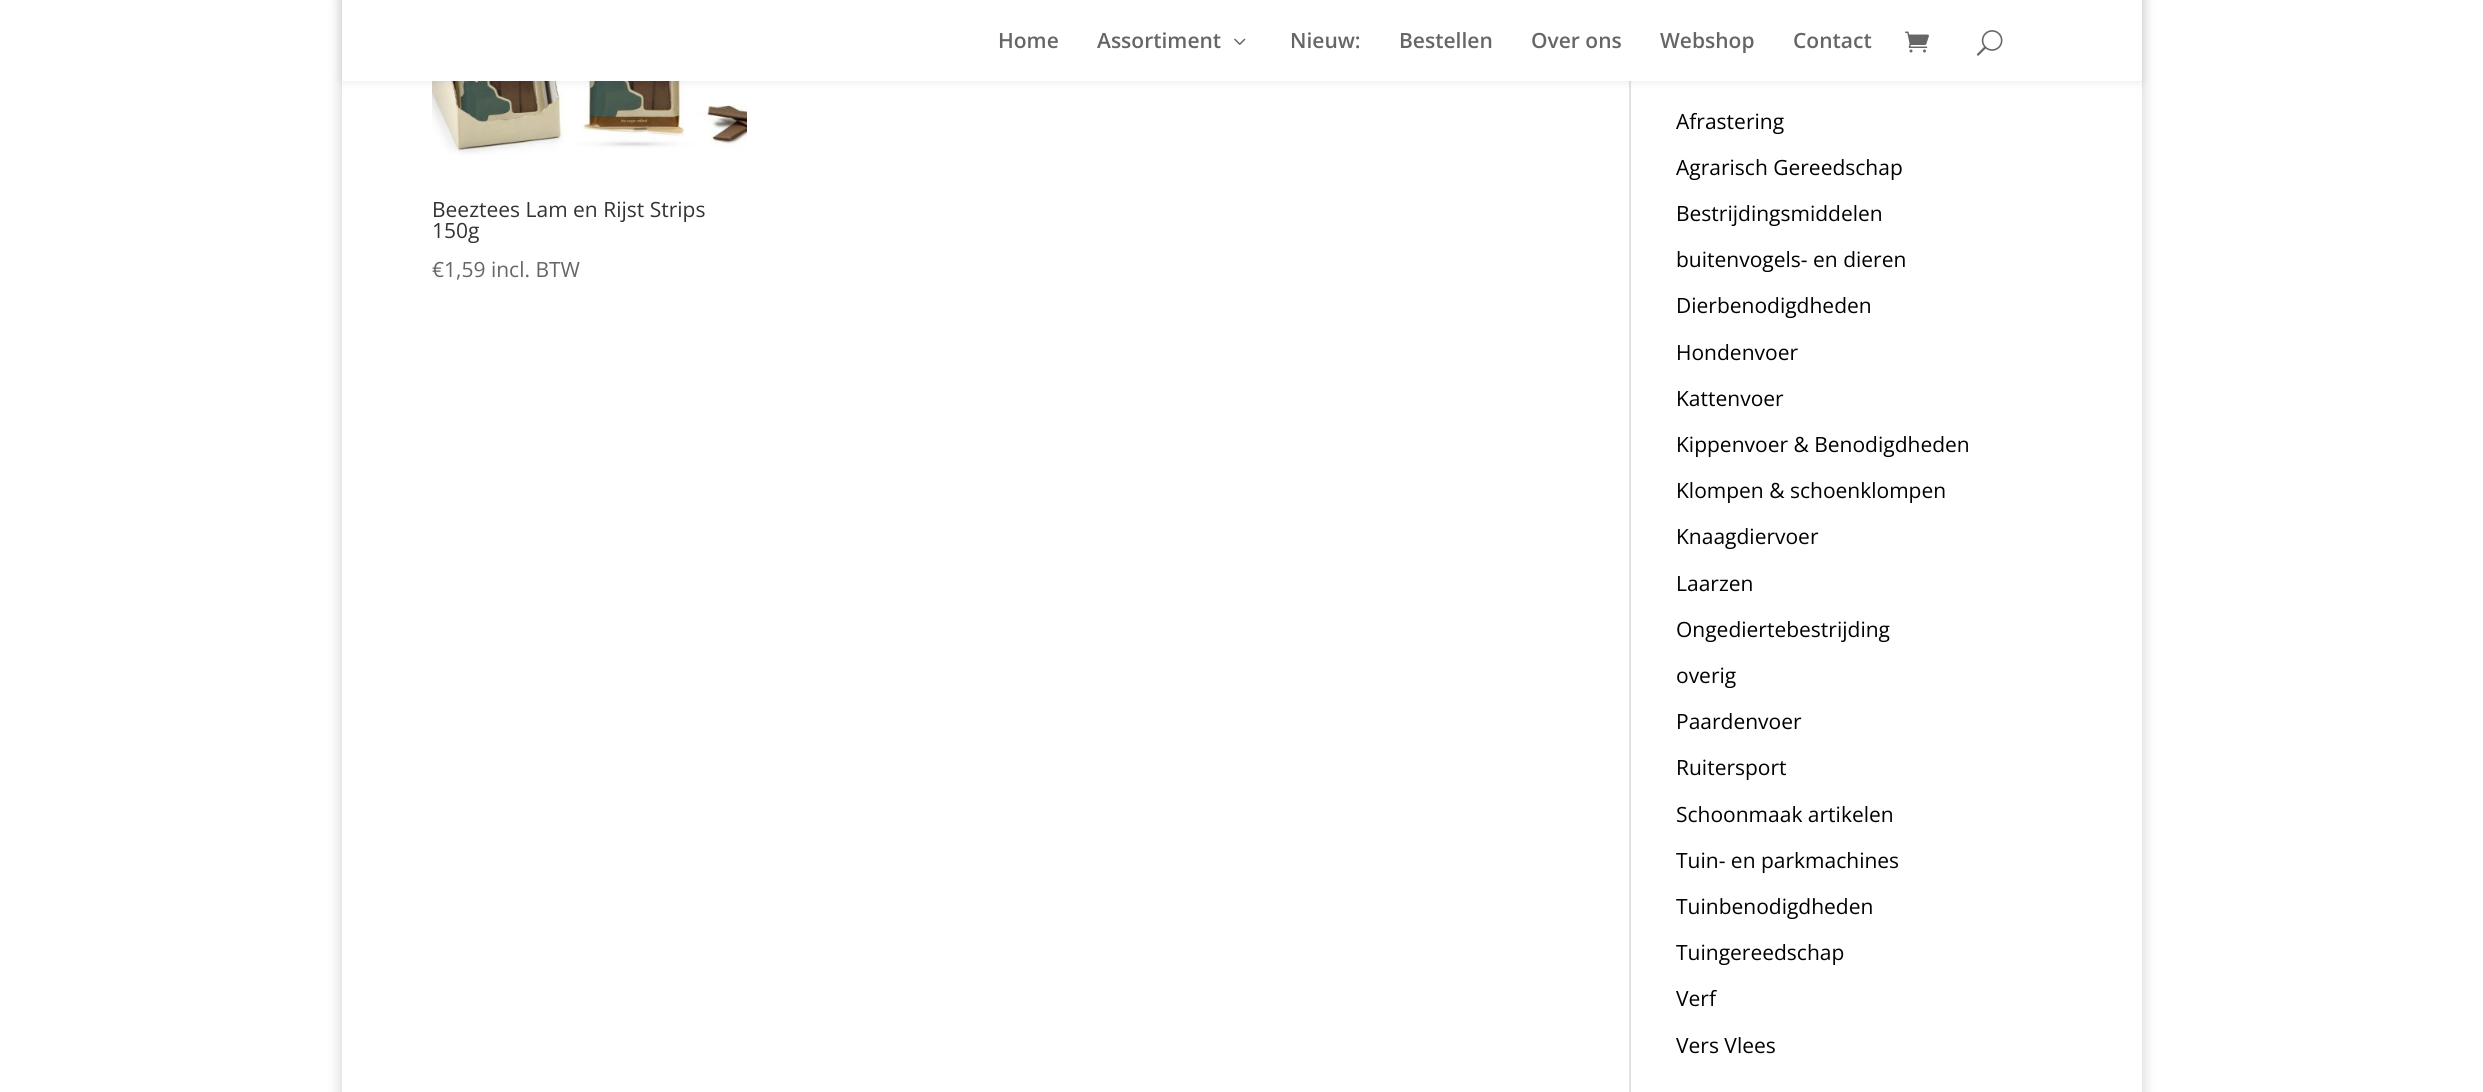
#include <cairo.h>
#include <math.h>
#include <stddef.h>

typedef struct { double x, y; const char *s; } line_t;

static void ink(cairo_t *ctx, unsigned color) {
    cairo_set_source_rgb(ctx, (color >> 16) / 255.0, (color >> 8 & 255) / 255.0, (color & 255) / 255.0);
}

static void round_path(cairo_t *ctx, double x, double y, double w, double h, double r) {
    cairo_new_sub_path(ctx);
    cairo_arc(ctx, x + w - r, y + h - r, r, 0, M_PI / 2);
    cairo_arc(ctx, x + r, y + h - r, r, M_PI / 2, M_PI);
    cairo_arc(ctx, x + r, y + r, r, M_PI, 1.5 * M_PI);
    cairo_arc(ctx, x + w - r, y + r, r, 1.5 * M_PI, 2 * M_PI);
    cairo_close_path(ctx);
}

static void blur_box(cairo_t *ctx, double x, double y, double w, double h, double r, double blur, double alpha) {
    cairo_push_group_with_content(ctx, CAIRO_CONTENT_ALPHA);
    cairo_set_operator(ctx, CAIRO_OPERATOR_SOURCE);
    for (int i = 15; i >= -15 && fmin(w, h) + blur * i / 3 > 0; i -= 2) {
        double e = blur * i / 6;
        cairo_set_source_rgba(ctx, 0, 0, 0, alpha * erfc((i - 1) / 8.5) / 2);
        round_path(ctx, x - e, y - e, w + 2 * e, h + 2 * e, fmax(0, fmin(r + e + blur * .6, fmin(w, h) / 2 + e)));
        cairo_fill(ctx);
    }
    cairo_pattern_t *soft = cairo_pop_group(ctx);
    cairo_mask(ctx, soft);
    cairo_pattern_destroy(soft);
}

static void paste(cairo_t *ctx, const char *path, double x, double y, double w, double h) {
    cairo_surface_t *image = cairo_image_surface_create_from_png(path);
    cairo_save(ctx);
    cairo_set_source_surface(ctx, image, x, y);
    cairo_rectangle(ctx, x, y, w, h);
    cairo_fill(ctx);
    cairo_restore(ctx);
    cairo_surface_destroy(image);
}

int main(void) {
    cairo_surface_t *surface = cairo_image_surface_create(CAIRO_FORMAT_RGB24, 2483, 1092);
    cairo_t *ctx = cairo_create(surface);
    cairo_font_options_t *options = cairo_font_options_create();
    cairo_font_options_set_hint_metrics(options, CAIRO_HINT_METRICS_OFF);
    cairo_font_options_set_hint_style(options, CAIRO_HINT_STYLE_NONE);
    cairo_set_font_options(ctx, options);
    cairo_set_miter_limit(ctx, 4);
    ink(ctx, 0xFFFFFF);
    cairo_paint(ctx);
    cairo_save(ctx);
    cairo_set_fill_rule(ctx, CAIRO_FILL_RULE_EVEN_ODD);
    cairo_new_path(ctx);
    cairo_move_to(ctx, 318, 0);
    cairo_line_to(ctx, 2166, 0);
    cairo_line_to(ctx, 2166, 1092);
    cairo_line_to(ctx, 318, 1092);
    cairo_close_path(ctx);
    cairo_move_to(ctx, 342, -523);
    cairo_line_to(ctx, 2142, -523);
    cairo_line_to(ctx, 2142, 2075);
    cairo_line_to(ctx, 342, 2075);
    cairo_close_path(ctx);
    cairo_clip(ctx);
    ink(ctx, 0x000000);
    blur_box(ctx, 342, -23, 1800, 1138, 0, 7.5, 0.2);
    cairo_restore(ctx);
    ink(ctx, 0xE2E2E2);
    cairo_rectangle(ctx, 1629, 81, 2, 1011);
    cairo_fill(ctx);
    paste(ctx, "media/4.png", 432, 81, 315, 74);
    ink(ctx, 0x000000);
    blur_box(ctx, 342, 0, 1800, 81, 0, 5, 0.1);
    ink(ctx, 0xFFFFFF);
    cairo_rectangle(ctx, 342, 0, 1800, 81);
    cairo_fill(ctx);
    cairo_select_font_face(ctx, "Open Sans SemiBold", CAIRO_FONT_SLANT_NORMAL, CAIRO_FONT_WEIGHT_NORMAL);
    cairo_set_font_size(ctx, 21);
    ink(ctx, 0x666666);
    cairo_move_to(ctx, 998, 48);
    cairo_show_text(ctx, "Home");
    cairo_move_to(ctx, 1097, 48);
    cairo_show_text(ctx, "Assortiment");
    paste(ctx, "media/1.png", 1234, 38, 12, 7);
    {
        static const line_t items[] = {
            {1290, 48, "Nieuw:"},
            {1399, 48, "Bestellen"},
            {1531, 48, "Over ons"},
            {1660, 48, "Webshop"},
            {1793, 48, "Contact"},
        };
        for (size_t i = 0; i < sizeof items / sizeof *items; i++) {
            cairo_move_to(ctx, items[i].x, items[i].y);
            cairo_show_text(ctx, items[i].s);
        }
    }
    paste(ctx, "media/2.png", 1905, 31, 24, 22);
    paste(ctx, "media/3.png", 1976, 30, 27, 26);
    cairo_select_font_face(ctx, "Open Sans", CAIRO_FONT_SLANT_NORMAL, CAIRO_FONT_WEIGHT_NORMAL);
    ink(ctx, 0x333333);
    cairo_move_to(ctx, 432, 217);
    cairo_show_text(ctx, "Beeztees Lam en Rijst Strips");
    cairo_move_to(ctx, 432, 238);
    cairo_show_text(ctx, "150g");
    ink(ctx, 0x666666);
    cairo_move_to(ctx, 432, 277);
    cairo_show_text(ctx, "€1,59 incl. BTW");
    ink(ctx, 0x000000);
    {
        static const line_t items[] = {
            {1676, 129, "Afrastering"},
            {1676, 175, "Agrarisch Gereedschap"},
            {1676, 221, "Bestrijdingsmiddelen"},
            {1676, 267, "buitenvogels- en dieren"},
            {1676, 313, "Dierbenodigdheden"},
            {1676, 360, "Hondenvoer"},
            {1676, 406, "Kattenvoer"},
            {1676, 452, "Kippenvoer & Benodigdheden"},
            {1676, 498, "Klompen & schoenklompen"},
            {1676, 544, "Knaagdiervoer"},
            {1676, 591, "Laarzen"},
            {1676, 637, "Ongediertebestrijding"},
            {1676, 683, "overig"},
            {1676, 729, "Paardenvoer"},
            {1676, 775, "Ruitersport"},
            {1676, 822, "Schoonmaak artikelen"},
            {1676, 868, "Tuin- en parkmachines"},
            {1676, 914, "Tuinbenodigdheden"},
            {1676, 960, "Tuingereedschap"},
            {1676, 1006, "Verf"},
            {1676, 1053, "Vers Vlees"},
        };
        for (size_t i = 0; i < sizeof items / sizeof *items; i++) {
            cairo_move_to(ctx, items[i].x, items[i].y);
            cairo_show_text(ctx, items[i].s);
        }
    }
    cairo_surface_write_to_png(surface, "image.png");
    cairo_font_options_destroy(options);
    cairo_destroy(ctx);
    cairo_surface_destroy(surface);
    return 0;
}
